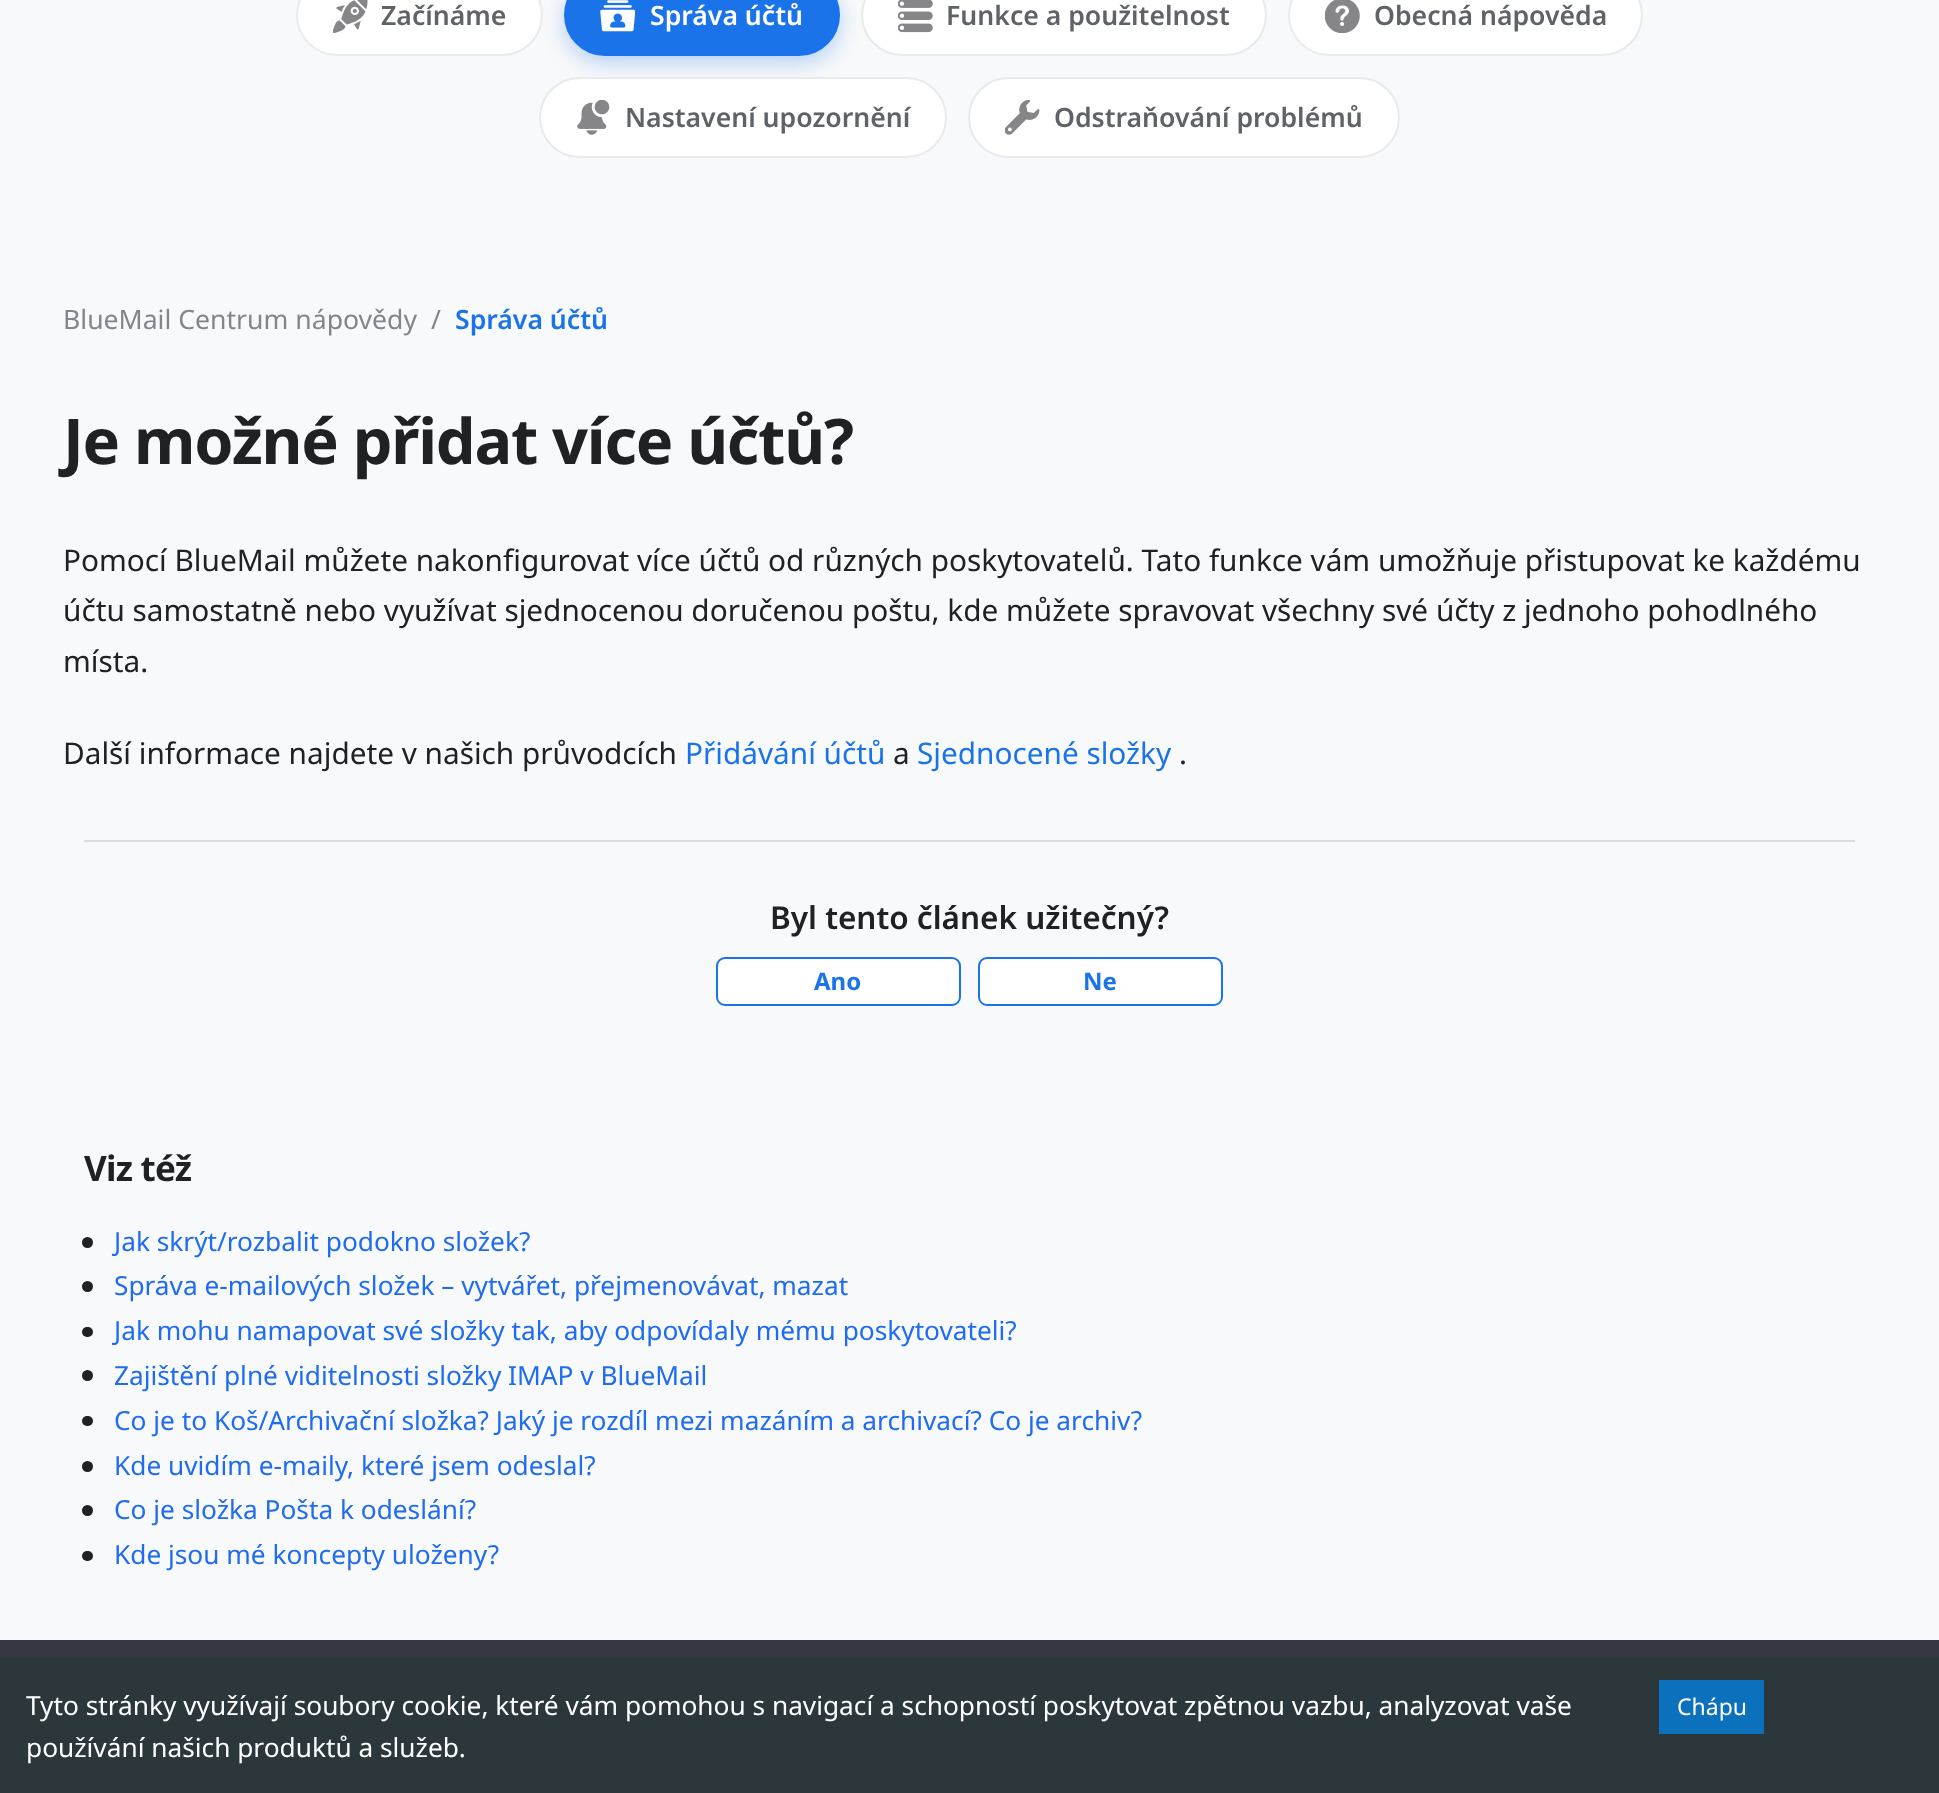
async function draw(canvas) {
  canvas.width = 1939;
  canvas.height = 1793;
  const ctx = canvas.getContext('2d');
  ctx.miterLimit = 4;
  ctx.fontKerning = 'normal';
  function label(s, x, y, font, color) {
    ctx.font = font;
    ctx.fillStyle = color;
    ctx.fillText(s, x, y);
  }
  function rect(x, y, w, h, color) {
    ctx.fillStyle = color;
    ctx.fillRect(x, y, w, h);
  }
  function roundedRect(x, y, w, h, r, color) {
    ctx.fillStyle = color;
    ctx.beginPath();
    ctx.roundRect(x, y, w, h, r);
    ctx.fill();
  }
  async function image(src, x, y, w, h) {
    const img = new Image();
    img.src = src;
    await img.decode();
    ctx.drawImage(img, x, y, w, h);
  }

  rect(0, 0, 1939, 1793, '#f8f9fa');
  ctx.fillStyle = '#fff';
  ctx.beginPath();
  ctx.roundRect(297, -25, 245, 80, 40);
  ctx.fill();
  ctx.strokeStyle = '#e8eaed';
  ctx.lineWidth = 2;
  ctx.stroke();
  await image('assets/img1.png', 333, 0, 35, 33);
  label('Začínáme', 381, 25, '600 26.6px Noto Sans', '#5f6368');
  ctx.fillStyle = '#1a73e84d';
  ctx.filter = 'blur(10.5px)';
  ctx.beginPath();
  ctx.roundRect(564, -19, 276, 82, 41);
  ctx.fill();
  ctx.filter = 'none';
  ctx.fillStyle = '#1a73e8';
  ctx.beginPath();
  ctx.roundRect(565, -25, 274, 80, 40);
  ctx.fill();
  ctx.strokeStyle = '#1a73e8';
  ctx.stroke();
  await image('assets/img2.png', 600, 0, 35, 32);
  label('Správa účtů', 650, 25, '600 26.6px Noto Sans', '#fff');
  ctx.beginPath();
  ctx.roundRect(862, -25, 404, 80, 40);
  ctx.fill();
  ctx.strokeStyle = '#e8eaed';
  ctx.stroke();
  await image('assets/img3.png', 898, 0, 35, 33);
  label('Funkce a použitelnost', 946, 25, '600 26.6px Noto Sans', '#5f6368');
  ctx.fillStyle = '#fff';
  ctx.beginPath();
  ctx.roundRect(1289, -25, 353, 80, 40);
  ctx.fill();
  ctx.stroke();
  await image('assets/img4.png', 1325, 0, 35, 33);
  label('Obecná nápověda', 1374, 25, '600 26.6px Noto Sans', '#5f6368');
  ctx.fillStyle = '#fff';
  ctx.beginPath();
  ctx.roundRect(540, 78, 406, 79, 39.5);
  ctx.fill();
  ctx.stroke();
  await image('assets/img5.png', 577, 100, 33, 35);
  label('Nastavení upozornění', 625, 127, '600 26.6px Noto Sans', '#5f6368');
  ctx.fillStyle = '#fff';
  ctx.beginPath();
  ctx.roundRect(969, 78, 430, 79, 39.5);
  ctx.fill();
  ctx.stroke();
  await image('assets/img6.png', 1005, 100, 35, 35);
  label('Odstraňování problémů', 1054, 127, '600 26.6px Noto Sans', '#5f6368');
  label('BlueMail Centrum nápovědy', 63, 329, '26.6px Noto Sans', '#80868b');
  label('/', 431, 329, '26.6px Noto Sans', '#80868b');
  label('Správa účtů', 455, 329, '600 26.6px Noto Sans', '#1a73e8');
  ctx.letterSpacing = '-1.25px';
  label('Je možné přidat více účtů?', 63, 464, 'bold 63px Noto Sans', '#202124');
  ctx.letterSpacing = '0px';
  label('Pomocí BlueMail můžete nakonfigurovat více účtů od různých poskytovatelů. Tato funkce vám umožňuje přistupovat ke každému', 63, 571, '29.75px Noto Sans', '#202124');
  label('účtu samostatně nebo využívat sjednocenou doručenou poštu, kde můžete spravovat všechny své účty z jednoho pohodlného', 63, 621, '29.75px Noto Sans', '#202124');
  label('místa.', 63, 672, '29.75px Noto Sans', '#202124');
  label('Další informace najdete v našich průvodcích', 63, 764, '29.75px Noto Sans', '#202124');
  label('Přidávání účtů', 685, 764, '29.75px Noto Sans', '#1a73e8');
  label('a', 893, 764, '29.75px Noto Sans', '#202124');
  label('Sjednocené složky', 917, 764, '29.75px Noto Sans', '#1a73e8');
  label('.', 1179, 764, '29.75px Noto Sans', '#202124');
  rect(84, 840, 1771, 2, '#dadce0');
  label('Byl tento článek užitečný?', 770, 929, '600 31.5px Noto Sans', '#202124');
  ctx.fillStyle = '#fff';
  ctx.beginPath();
  ctx.roundRect(717, 958, 243, 47, 8);
  ctx.fill();
  ctx.strokeStyle = '#1a73e8';
  ctx.stroke();
  label('Ano', 814, 990, 'bold 24px Noto Sans', '#1a73e8');
  ctx.fillStyle = '#fff';
  ctx.beginPath();
  ctx.roundRect(979, 958, 243, 47, 8);
  ctx.fill();
  ctx.stroke();
  label('Ne', 1083, 990, 'bold 24px Noto Sans', '#1a73e8');
  ctx.letterSpacing = '-0.75px';
  label('Viz též', 84, 1181, 'bold 35px Noto Sans', '#202124');
  ctx.beginPath();
  ctx.arc(87.5, 1242.5, 5.5, 0, 2 * Math.PI);
  ctx.fill();
  ctx.letterSpacing = '0px';
  label('Jak skrýt/rozbalit podokno složek?', 114, 1251, '26.25px Noto Sans', '#1f6bf1');
  ctx.fillStyle = '#202124';
  ctx.beginPath();
  ctx.arc(87.5, 1286.5, 5.5, 0, 2 * Math.PI);
  ctx.fill();
  label('Správa e-mailových složek – vytvářet, přejmenovávat, mazat', 114, 1295, '26.25px Noto Sans', '#1f6bf1');
  roundedRect(82, 1327, 11, 10, 5, '#202124');
  label('Jak mohu namapovat své složky tak, aby odpovídaly mému poskytovateli?', 114, 1340, '26.25px Noto Sans', '#1f6bf1');
  ctx.fillStyle = '#202124';
  ctx.beginPath();
  ctx.arc(87.5, 1375.5, 5.5, 0, 2 * Math.PI);
  ctx.fill();
  label('Zajištění plné viditelnosti složky IMAP v BlueMail', 114, 1385, '26.25px Noto Sans', '#1f6bf1');
  roundedRect(82, 1416, 11, 10, 5, '#202124');
  label('Co je to Koš/Archivační složka? Jaký je rozdíl mezi mazáním a archivací? Co je archiv?', 114, 1430, '26.25px Noto Sans', '#1f6bf1');
  ctx.fillStyle = '#202124';
  ctx.beginPath();
  ctx.arc(87.5, 1466.5, 5.5, 0, 2 * Math.PI);
  ctx.fill();
  label('Kde uvidím e-maily, které jsem odeslal?', 114, 1475, '26.25px Noto Sans', '#1f6bf1');
  ctx.fillStyle = '#202124';
  ctx.beginPath();
  ctx.arc(87.5, 1510.5, 5.5, 0, 2 * Math.PI);
  ctx.fill();
  label('Co je složka Pošta k odeslání?', 114, 1519, '26.25px Noto Sans', '#1f6bf1');
  roundedRect(82, 1551, 11, 10, 5, '#202124');
  label('Kde jsou mé koncepty uloženy?', 114, 1564, '26.25px Noto Sans', '#1f6bf1');
  rect(0, 1640, 1939, 17, '#343642');
  rect(0, 1657, 1939, 136, '#2b373b');
  label('Tyto stránky využívají soubory cookie, které vám pomohou s navigací a schopností poskytovat zpětnou vazbu, analyzovat vaše', 26, 1715, '26.25px Noto Sans', '#fff');
  label('používání našich produktů a služeb.', 26, 1757, '26.25px Noto Sans', '#fff');
  rect(1659, 1680, 105, 54, '#0b71bc');
  label('Chápu', 1677, 1715, '23px Noto Sans', '#fff');
}

draw(document.querySelector('canvas'));
